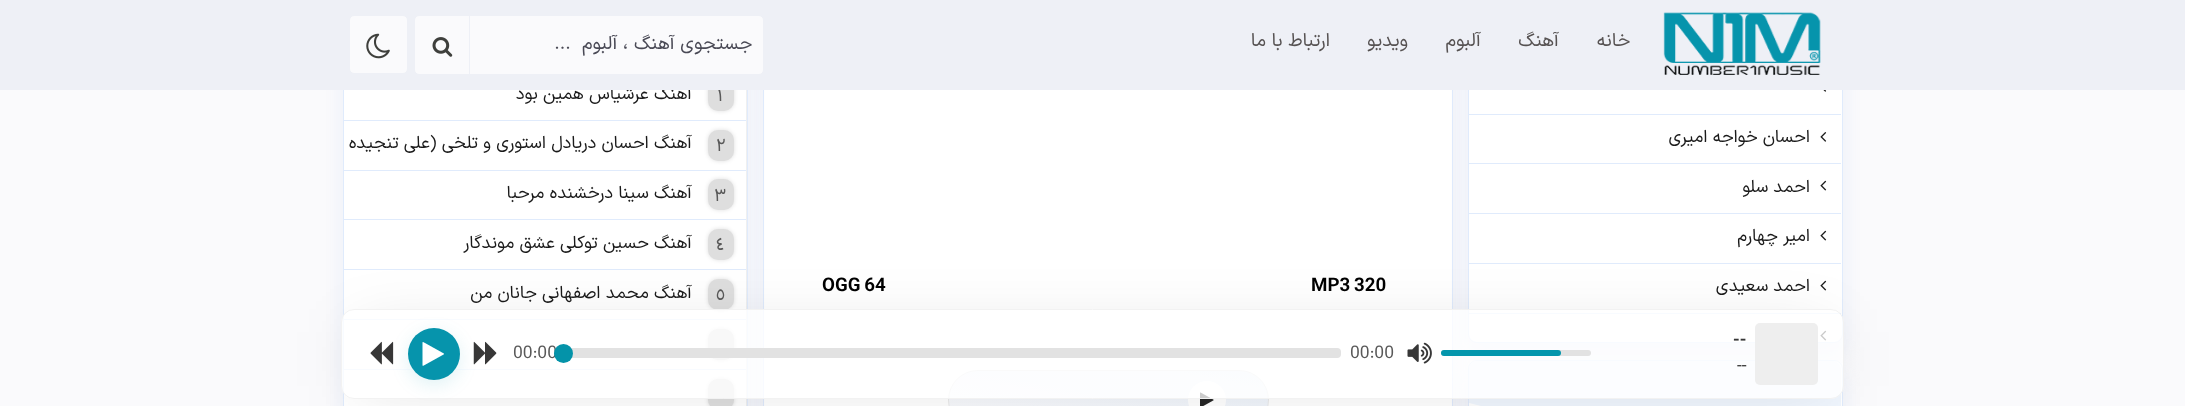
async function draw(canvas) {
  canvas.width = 2185;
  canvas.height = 406;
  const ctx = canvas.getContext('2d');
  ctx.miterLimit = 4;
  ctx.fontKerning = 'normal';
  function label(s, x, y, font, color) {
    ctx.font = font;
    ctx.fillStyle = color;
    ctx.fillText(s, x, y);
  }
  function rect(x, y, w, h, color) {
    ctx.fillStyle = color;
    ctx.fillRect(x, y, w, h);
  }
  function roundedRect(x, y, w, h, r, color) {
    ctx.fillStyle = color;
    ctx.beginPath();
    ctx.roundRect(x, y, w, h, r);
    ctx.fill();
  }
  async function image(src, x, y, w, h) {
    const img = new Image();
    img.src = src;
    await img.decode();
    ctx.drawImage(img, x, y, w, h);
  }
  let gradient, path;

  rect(0, 0, 2185, 406, '#fafafc');
  ctx.fillStyle = '#dce3f780';
  ctx.filter = 'blur(9.5px)';
  ctx.beginPath();
  ctx.roundRect(763, -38, 690, 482, 9);
  ctx.fill();
  ctx.filter = 'none';
  rect(764, 90, 688, 316, '#fff');
  ctx.strokeStyle = '#e0ebfc';
  ctx.strokeRect(763.5, -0.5, 689, 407);
  ctx.fillStyle = '#dce3f780';
  ctx.filter = 'blur(9.5px)';
  ctx.beginPath();
  ctx.roundRect(1468, -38, 375, 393, 9);
  ctx.fill();
  ctx.filter = 'none';
  ctx.fillStyle = '#fff';
  ctx.beginPath();
  ctx.roundRect(1468.5, -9.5, 374, 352, 8.5);
  ctx.fill();
  ctx.stroke();
  ctx.fillStyle = '#dce3f780';
  ctx.filter = 'blur(9.5px)';
  ctx.beginPath();
  ctx.roundRect(343, -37, 405, 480, 8);
  ctx.fill();
  ctx.filter = 'none';
  rect(746, 90, 1, 316, '#f0f0f0');
  ctx.strokeRect(343.5, -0.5, 404, 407);
  rect(344, 90, 402, 316, '#fff');
  ctx.fillStyle = '#00000021';
  ctx.filter = 'blur(2px)';
  ctx.beginPath();
  ctx.roundRect(708, 80, 26, 31, 10);
  ctx.fill();
  ctx.filter = 'none';
  roundedRect(708, 80, 26, 31, 10, '#dedede');
  label('١', 717, 101, '17.5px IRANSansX', '#595959');
  ctx.direction = 'rtl';
  label('آهنگ عرشیاس همین بود', 692, 99, '17.5px IRANSansX', '#1a1a1a');
  rect(0, 0, 2185, 90, '#eef0f6');
  await image('assets/img1.png', 1663, 12, 158, 63);
  label('خانه', 1630, 46, '18.75px IRANSansX', '#565252');
  label('آهنگ', 1559, 46, '18.75px IRANSansX', '#565252');
  label('آلبوم', 1481, 46, '18.75px IRANSansX', '#565252');
  label('ویدیو', 1408, 46, '18.75px IRANSansX', '#565252');
  label('ارتباط با ما', 1330, 46, '18.75px IRANSansX', '#565252');
  ctx.fillStyle = '#fafafc';
  ctx.beginPath();
  ctx.roundRect(414.5, 15.5, 349, 59, 4.5);
  ctx.fill();
  ctx.strokeStyle = '#eef0f6';
  ctx.stroke();
  label('جستجوی آهنگ ، آلبوم  ...', 752, 49, '18.75px IRANSansX', '#494955');
  rect(469, 16, 1, 58, '#eef0f6');
  await image('assets/img2.png', 432, 37, 21, 20);
  ctx.fillStyle = '#fafafc';
  ctx.beginPath();
  ctx.roundRect(349.5, 15.5, 58, 58, 4.5);
  ctx.fill();
  ctx.stroke();
  await image('assets/img3.png', 366, 33, 24, 26);
  rect(1469, 114, 372, 1, '#e0ebfc');
  await image('assets/img4.png', 1823, 90, 4, 2);
  rect(1469, 163, 372, 1, '#e0ebfc');
  await image('assets/img5.png', 1820, 132, 7, 10);
  label('احسان خواجه امیری', 1810, 142, '17.5px IRANSansX', '#1a1a1a');
  rect(1469, 213, 372, 1, '#e0ebfc');
  await image('assets/img6.png', 1820, 180, 7, 11);
  label('احمد سلو', 1810, 192, '17.5px IRANSansX', '#1a1a1a');
  rect(1469, 263, 372, 1, '#e0ebfc');
  await image('assets/img6.png', 1820, 230, 7, 11);
  label('امیر چهارم', 1810, 241, '17.5px IRANSansX', '#1a1a1a');
  rect(1469, 313, 372, 1, '#e0ebfc');
  await image('assets/img6.png', 1820, 280, 7, 11);
  label('احمد سعیدی', 1810, 291, '17.5px IRANSansX', '#1a1a1a');
  await image('assets/img6.png', 1820, 330, 7, 11);
  ctx.fillStyle = '#dce3f780';
  ctx.filter = 'blur(9.5px)';
  ctx.beginPath();
  ctx.roundRect(1468, 373, 375, 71, 9);
  ctx.fill();
  ctx.filter = 'none';
  ctx.fillStyle = '#fff';
  ctx.beginPath();
  ctx.roundRect(1468.5, 360.5, 374, 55, 8.5);
  ctx.fill();
  ctx.strokeStyle = '#e0ebfc';
  ctx.stroke();
  ctx.fillStyle = '#f0f6fe';
  path = new Path2D('M1477 361H1833C1837 361 1841 365 1841 369V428C1764 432 1686 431 1609 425C1562 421 1515 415 1469 403V369C1469 365 1473 361 1477 361Z');
  ctx.fill(path);
  ctx.direction = 'ltr';
  label('MP3 320', 1311, 291, 'bold 18.75px IRANSansX', '#000');
  label('OGG 64', 822, 291, 'bold 18.75px IRANSansX', '#000');
  ctx.save();
  ctx.beginPath();
  ctx.roundRect(948, 370, 321, 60, 30);
  ctx.clip();
  gradient = ctx.createLinearGradient(1098, 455, 1118, 345);
  gradient.addColorStop(0, '#fafafc');
  gradient.addColorStop(1, '#edf3fb');
  ctx.fillStyle = gradient;
  ctx.fillRect(949, 371, 319, 35);
  ctx.restore();
  ctx.beginPath();
  ctx.roundRect(948.5, 370.5, 320, 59, 29.5);
  ctx.strokeStyle = '#eaeaea';
  ctx.stroke();
  ctx.fillStyle = '#fff';
  ctx.beginPath();
  ctx.arc(1207, 400, 19, 0, 2 * Math.PI);
  ctx.fill();
  await image('assets/img7.png', 1200, 392, 14, 14);
  rect(344, 120, 402, 1, '#e0ebfc');
  rect(344, 170, 402, 1, '#e0ebfc');
  ctx.fillStyle = '#00000021';
  ctx.filter = 'blur(2px)';
  ctx.beginPath();
  ctx.roundRect(708, 130, 26, 31, 10);
  ctx.fill();
  ctx.filter = 'none';
  roundedRect(708, 130, 26, 31, 10, '#dedede');
  label('٢', 716, 151, '17.5px IRANSansX', '#595959');
  ctx.direction = 'rtl';
  label('آهنگ احسان دریادل استوری و تلخی (علی تنجیده', 692, 148, '17.5px IRANSansX', '#1a1a1a');
  rect(344, 219, 402, 1, '#e0ebfc');
  ctx.fillStyle = '#00000021';
  ctx.filter = 'blur(2px)';
  ctx.beginPath();
  ctx.roundRect(708, 179, 26, 31, 10);
  ctx.fill();
  ctx.filter = 'none';
  roundedRect(708, 179, 26, 31, 10, '#dedede');
  ctx.direction = 'ltr';
  label('٣', 714, 201, '17.5px IRANSansX', '#595959');
  ctx.direction = 'rtl';
  label('آهنگ سینا درخشنده مرحبا', 692, 198, '17.5px IRANSansX', '#1a1a1a');
  rect(344, 269, 402, 1, '#e0ebfc');
  ctx.fillStyle = '#00000021';
  ctx.filter = 'blur(2px)';
  ctx.beginPath();
  ctx.roundRect(708, 229, 26, 31, 10);
  ctx.fill();
  ctx.filter = 'none';
  roundedRect(708, 229, 26, 31, 10, '#dedede');
  ctx.direction = 'ltr';
  label('٤', 716, 250, '17.5px IRANSansX', '#595959');
  ctx.direction = 'rtl';
  label('آهنگ حسین توکلی عشق موندگار', 692, 248, '17.5px IRANSansX', '#1a1a1a');
  rect(344, 319, 402, 1, '#e0ebfc');
  ctx.fillStyle = '#00000021';
  ctx.filter = 'blur(2px)';
  ctx.beginPath();
  ctx.roundRect(708, 279, 26, 31, 10);
  ctx.fill();
  ctx.filter = 'none';
  roundedRect(708, 279, 26, 31, 10, '#dedede');
  ctx.direction = 'ltr';
  label('٥', 716, 300, '17.5px IRANSansX', '#595959');
  ctx.direction = 'rtl';
  label('آهنگ محمد اصفهانی جانان من', 692, 298, '17.5px IRANSansX', '#1a1a1a');
  rect(344, 369, 402, 1, '#e0ebfc');
  ctx.fillStyle = '#00000021';
  ctx.filter = 'blur(2px)';
  ctx.beginPath();
  ctx.roundRect(708, 329, 26, 31, 10);
  ctx.fill();
  ctx.filter = 'none';
  roundedRect(708, 329, 26, 31, 10, '#dedede');
  ctx.fillStyle = '#00000021';
  ctx.filter = 'blur(2px)';
  ctx.beginPath();
  ctx.roundRect(708, 379, 26, 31, 10);
  ctx.fill();
  ctx.filter = 'none';
  roundedRect(708, 379, 26, 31, 10, '#dedede');
  ctx.save();
  path = new Path2D('M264 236H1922V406H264ZM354 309H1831C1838 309 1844 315 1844 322V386C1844 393 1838 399 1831 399H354C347 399 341 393 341 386V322C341 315 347 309 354 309Z');
  ctx.clip(path, 'evenodd');
  ctx.fillStyle = '#0000001f';
  ctx.filter = 'blur(31px)';
  ctx.beginPath();
  ctx.rect(358, 330, 1470, 58);
  ctx.fill();
  ctx.filter = 'none';
  ctx.restore();
  ctx.fillStyle = '#ffffffc4';
  ctx.beginPath();
  ctx.roundRect(341.5, 309.5, 1502, 89, 12.5);
  ctx.fill();
  ctx.strokeStyle = '#f2f2f2';
  ctx.stroke();
  roundedRect(1755, 323, 63, 62, 5, '#eee');
  ctx.direction = 'ltr';
  label('--', 1733, 345, 'bold 17.5px IRANSansX', '#373737');
  label('--', 1737, 371, '17.5px IRANSansX', '#373737');
  await image('assets/img10.png', 473, 341, 24, 24);
  await image('assets/img11.png', 370, 341, 24, 24);
  ctx.fillStyle = '#0496ac1f';
  ctx.filter = 'blur(9px)';
  ctx.beginPath();
  ctx.roundRect(408, 333, 52, 52, 26);
  ctx.fill();
  ctx.filter = 'none';
  ctx.fillStyle = '#0694ac';
  ctx.beginPath();
  ctx.arc(434, 354, 26, 0, 2 * Math.PI);
  ctx.fill();
  await image('assets/img8.png', 422, 342, 22, 24);
  roundedRect(1441, 350, 150, 6, 3, '#e2e2e2');
  roundedRect(1441, 350, 120, 6, 3, '#0496ac');
  await image('assets/img9.png', 1407, 342, 25, 22);
  label('00:00', 1350, 358, '17.5px IRANSansX', '#595959');
  roundedRect(565, 348, 776, 10, 4, '#e2e2e2');
  label('00:00', 513, 358, '17.5px IRANSansX', '#595959');
  ctx.fillStyle = '#0493a9';
  ctx.beginPath();
  ctx.arc(563.5, 353.5, 9.5, 0, 2 * Math.PI);
  ctx.fill();
}

draw(document.querySelector('canvas'));
